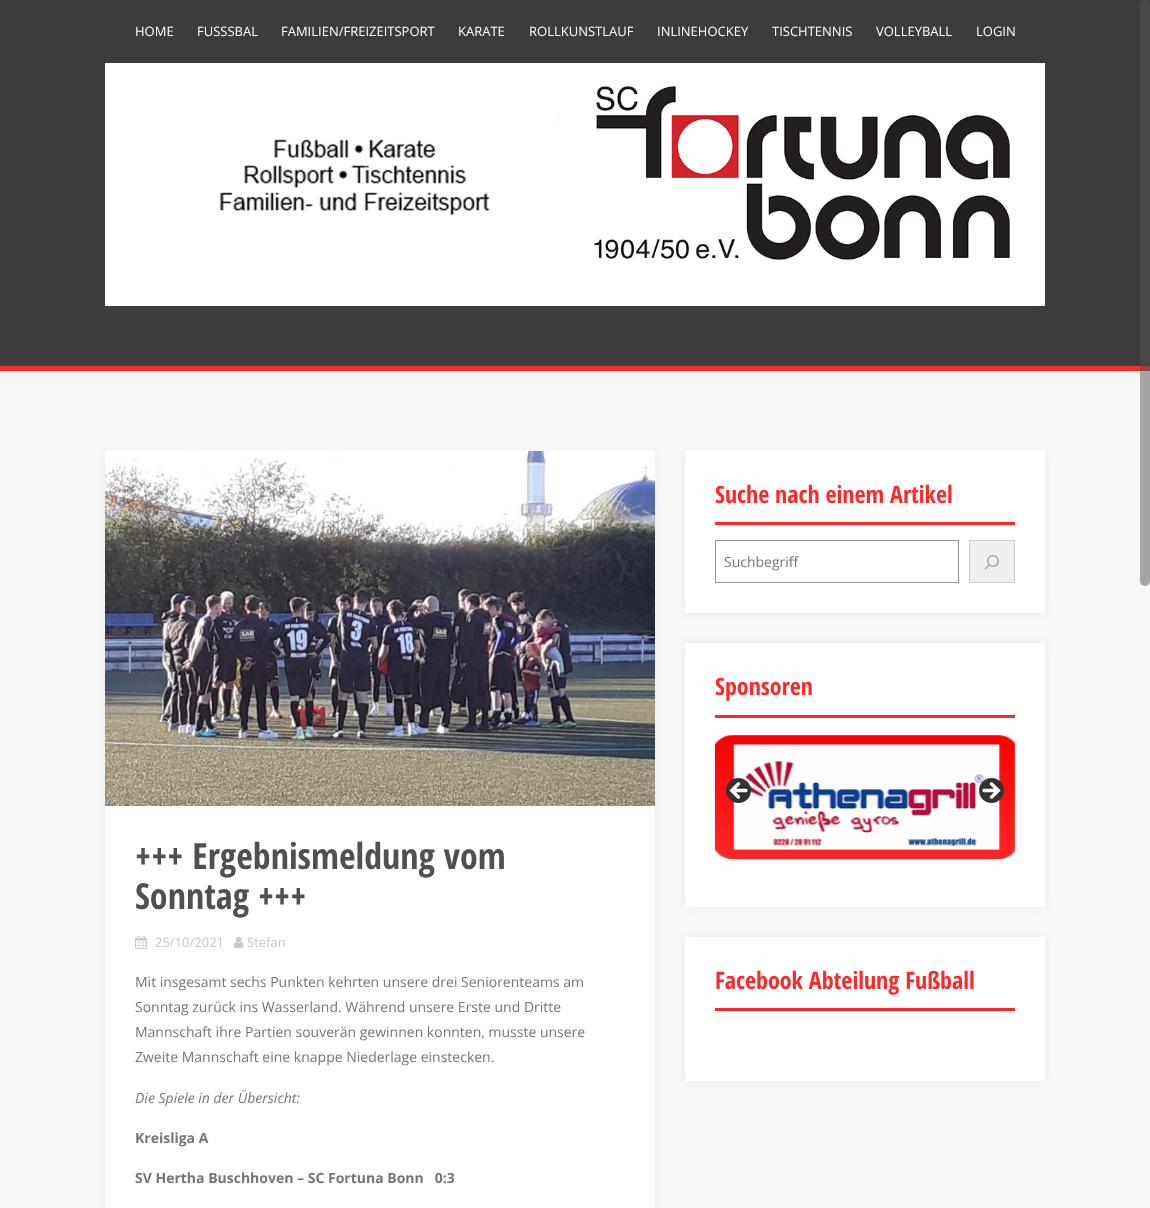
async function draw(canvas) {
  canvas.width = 1150;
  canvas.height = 1208;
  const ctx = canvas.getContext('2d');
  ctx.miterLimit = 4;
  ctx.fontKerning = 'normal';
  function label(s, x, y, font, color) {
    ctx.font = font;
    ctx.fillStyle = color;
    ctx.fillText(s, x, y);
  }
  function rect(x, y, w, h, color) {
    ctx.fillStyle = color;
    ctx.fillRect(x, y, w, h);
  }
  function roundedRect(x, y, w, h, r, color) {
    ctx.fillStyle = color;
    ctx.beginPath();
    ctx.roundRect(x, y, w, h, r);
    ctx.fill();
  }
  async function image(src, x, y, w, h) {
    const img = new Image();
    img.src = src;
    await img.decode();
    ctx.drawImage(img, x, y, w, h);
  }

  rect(0, 0, 1150, 1208, '#f7f7f7');
  rect(0, 0, 1150, 366, '#3c3c3c');
  rect(0, 366, 1150, 5, '#ff2828');
  label('HOME', 135, 36, '13px Open Sans', '#fff');
  label('FUSSSBAL', 197, 36, '13px Open Sans', '#fff');
  label('FAMILIEN/FREIZEITSPORT', 281, 36, '13px Open Sans', '#fff');
  label('KARATE', 458, 36, '13px Open Sans', '#fff');
  label('ROLLKUNSTLAUF', 529, 36, '13px Open Sans', '#fff');
  label('INLINEHOCKEY', 657, 36, '13px Open Sans', '#fff');
  label('TISCHTENNIS', 772, 36, '13px Open Sans', '#fff');
  label('VOLLEYBALL', 876, 36, '13px Open Sans', '#fff');
  label('LOGIN', 976, 36, '13px Open Sans', '#fff');
  await image('assets/img1.png', 105, 63, 940, 243);
  ctx.save();
  ctx.beginPath();
  ctx.rect(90, 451, 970, 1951);
  ctx.clip();
  ctx.fillStyle = '#828e941a';
  ctx.filter = 'blur(5px)';
  ctx.beginPath();
  ctx.rect(105, 451, 550, 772);
  ctx.fill();
  ctx.filter = 'none';
  ctx.restore();
  rect(105, 806, 550, 402, '#fff');
  await image('assets/img2.png', 105, 451, 550, 355);
  label('+++ Ergebnismeldung vom', 135, 869, 'bold 36px Open Sans Condensed', '#505050');
  label('Sonntag +++', 135, 909, 'bold 36px Open Sans Condensed', '#505050');
  await image('assets/img3.png', 135, 935, 12, 14);
  label('25/10/2021', 155, 947, '13px Open Sans', '#c8c8c8');
  await image('assets/img4.png', 234, 936, 10, 12);
  label('Stefan', 247, 947, '13px Open Sans', '#c8c8c8');
  label('Mit insgesamt sechs Punkten kehrten unsere drei Seniorenteams am', 135, 987, '14px Open Sans', '#757575');
  label('Sonntag zurück ins Wasserland. Während unsere Erste und Dritte', 135, 1012, '14px Open Sans', '#757575');
  label('Mannschaft ihre Partien souverän gewinnen konnten, musste unsere', 135, 1037, '14px Open Sans', '#757575');
  label('Zweite Mannschaft eine knappe Niederlage einstecken.', 135, 1062, '14px Open Sans', '#757575');
  label('Die Spiele in der Übersicht:', 135, 1103, 'italic 14px Open Sans', '#757575');
  label('Kreisliga A', 135, 1143, 'bold 14px Open Sans', '#757575');
  label('SV Hertha Buschhoven – SC Fortuna Bonn   0:3', 135, 1183, 'bold 14px Open Sans', '#757575');
  ctx.save();
  ctx.beginPath();
  ctx.rect(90, 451, 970, 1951);
  ctx.clip();
  ctx.fillStyle = '#828e941a';
  ctx.filter = 'blur(5px)';
  ctx.beginPath();
  ctx.rect(685, 451, 360, 162);
  ctx.fill();
  ctx.filter = 'none';
  ctx.restore();
  rect(685, 451, 360, 162, '#fff');
  rect(715, 522, 300, 3, '#ff2828');
  label('Suche nach einem Artikel', 715, 503, 'bold 24px Open Sans Condensed', '#ff2828');
  ctx.strokeStyle = '#949494';
  ctx.strokeRect(715.5, 540.5, 243, 42);
  label('Suchbegriff', 724, 567, '14px Open Sans', '#757575');
  ctx.fillStyle = '#efefef';
  ctx.beginPath();
  ctx.rect(969.5, 540.5, 45, 42);
  ctx.fill();
  ctx.strokeStyle = '#ccc';
  ctx.stroke();
  await image('assets/img5.png', 984, 555, 16, 15);
  ctx.fillStyle = '#828e941a';
  ctx.filter = 'blur(5px)';
  ctx.beginPath();
  ctx.rect(685, 643, 360, 264);
  ctx.fill();
  ctx.filter = 'none';
  rect(685, 643, 360, 264, '#fff');
  rect(715, 715, 300, 3, '#ff2828');
  label('Sponsoren', 715, 695, 'bold 24px Open Sans Condensed', '#ff2828');
  await image('assets/img6.png', 715, 735, 300, 124);
  await image('assets/img7.png', 726, 778, 25, 25);
  await image('assets/img8.png', 979, 778, 25, 25);
  ctx.fillStyle = '#828e941a';
  ctx.filter = 'blur(5px)';
  ctx.beginPath();
  ctx.rect(685, 937, 360, 144);
  ctx.fill();
  ctx.filter = 'none';
  rect(685, 937, 360, 144, '#fff');
  rect(715, 1008, 300, 3, '#ff2828');
  label('Facebook Abteilung Fußball', 715, 989, 'bold 24px Open Sans Condensed', '#ff2828');
  roundedRect(1140, 0, 10, 586, 5, '#52525280');
}

draw(document.querySelector('canvas'));
